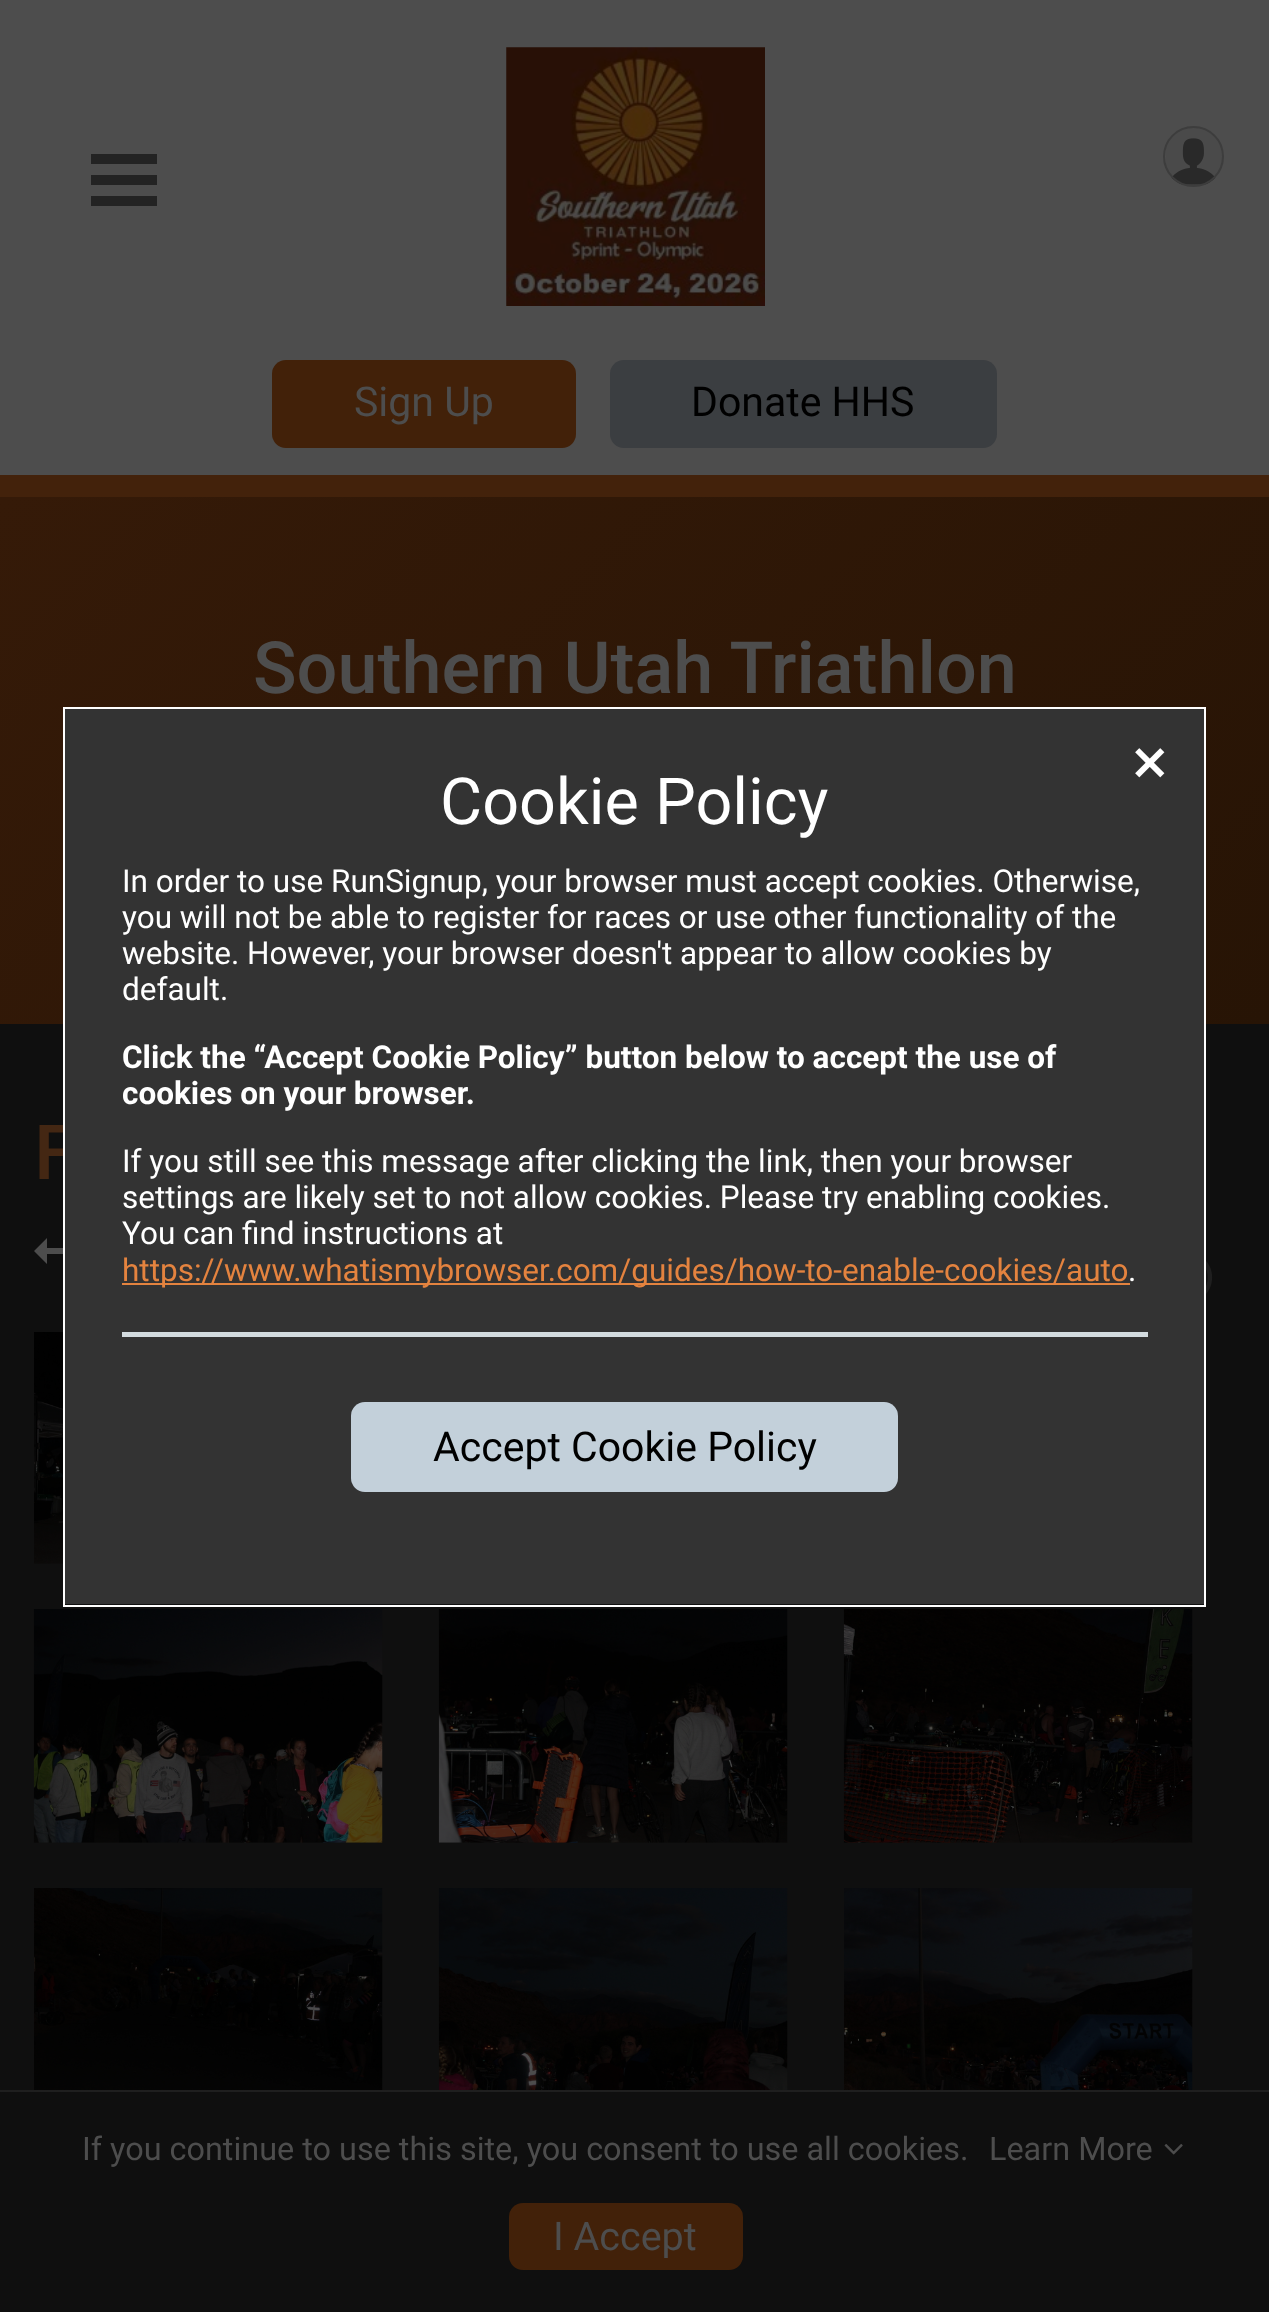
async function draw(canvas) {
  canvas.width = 1269;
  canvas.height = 2312;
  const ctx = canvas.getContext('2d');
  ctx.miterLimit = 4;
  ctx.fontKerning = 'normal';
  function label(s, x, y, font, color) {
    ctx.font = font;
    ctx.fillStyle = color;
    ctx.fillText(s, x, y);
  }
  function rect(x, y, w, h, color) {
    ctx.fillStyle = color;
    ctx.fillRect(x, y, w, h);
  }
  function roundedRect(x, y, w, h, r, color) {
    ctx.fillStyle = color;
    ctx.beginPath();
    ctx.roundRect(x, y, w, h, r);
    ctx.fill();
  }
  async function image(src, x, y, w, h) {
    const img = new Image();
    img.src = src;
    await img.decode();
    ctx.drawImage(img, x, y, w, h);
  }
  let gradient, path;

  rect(0, 0, 1269, 2312, '#0f0f0f');
  rect(0, 0, 1269, 475, '#4d4d4d');
  ctx.fillStyle = '#232323';
  path = new Path2D('M157 154V164H91V154ZM157 175V185H91V175ZM157 196V206H91V196Z');
  ctx.fill(path);
  await image('assets/img1.png', 506, 47, 259, 259);
  await image('assets/img2.png', 1166, 128, 56, 57);
  ctx.beginPath();
  ctx.arc(1193.5, 156.5, 29.5, 0, 2 * Math.PI);
  ctx.strokeStyle = '#3d3d3d';
  ctx.lineWidth = 2;
  ctx.stroke();
  roundedRect(272, 360, 304, 88, 14, '#422109');
  label('Sign Up', 354, 416, '41px Roboto', '#4d4d4d');
  roundedRect(610, 360, 387, 88, 14, '#3b3e41');
  label('Donate HHS', 691, 416, '41px Roboto', '#000');
  gradient = ctx.createLinearGradient(1083, 1209, 186, 312);
  gradient.addColorStop(0, '#271405');
  gradient.addColorStop(1, '#351a08');
  ctx.fillStyle = gradient;
  ctx.fillRect(0, 497, 1269, 527);
  rect(0, 475, 1269, 22, '#43220b');
  label('Southern Utah Triathlon', 253, 693, '500 72px Roboto', '#4d4d4d');
  label('F', 34, 1179, '500 76px Roboto', '#442713');
  ctx.fillStyle = '#4d4d4d';
  path = new Path2D('M47 1238L34 1251L47 1264V1254H69V1248H47Z');
  ctx.fill(path);
  ctx.fillStyle = '#1f1f1f';
  path = new Path2D('M1189 1254C1158 1254 1158 1301 1189 1301C1220 1301 1220 1254 1189 1254ZM1189 1297C1164 1297 1164 1258 1189 1258C1214 1258 1214 1297 1189 1297ZM1182 1287L1186 1291L1199 1278L1186 1264L1182 1269L1191 1278Z');
  ctx.fill(path);
  await image('assets/img3.png', 34, 1332, 29, 232);
  await image('assets/img4.png', 33, 1609, 350, 234);
  await image('assets/img5.png', 438, 1609, 350, 234);
  await image('assets/img6.png', 843, 1609, 350, 234);
  await image('assets/img7.png', 34, 1888, 349, 202);
  await image('assets/img8.png', 438, 1888, 350, 202);
  await image('assets/img9.png', 844, 1888, 349, 202);
  ctx.strokeStyle = '#fff';
  ctx.strokeRect(64, 708, 1141, 898);
  rect(65, 709, 1139, 895, '#333');
  await image('assets/img10.png', 1135, 748, 30, 30);
  label('Cookie Policy', 440, 824, '64.75px Roboto', '#fff');
  label('In order to use RunSignup, your browser must accept cookies. Otherwise,', 122, 892, '31.5px Roboto', '#fff');
  label('you will not be able to register for races or use other functionality of the', 122, 928, '31.5px Roboto', '#fff');
  label('website. However, your browser doesn\'t appear to allow cookies by', 122, 964, '31.5px Roboto', '#fff');
  label('default.', 122, 1000, '31.5px Roboto', '#fff');
  label('Click the “Accept Cookie Policy” button below to accept the use of', 122, 1068, 'bold 31.5px Roboto', '#fff');
  label('cookies on your browser.', 122, 1104, 'bold 31.5px Roboto', '#fff');
  label('If you still see this message after clicking the link, then your browser', 122, 1172, '31.5px Roboto', '#fff');
  label('settings are likely set to not allow cookies. Please try enabling cookies.', 122, 1208, '31.5px Roboto', '#fff');
  label('You can find instructions at', 122, 1244, '31.5px Roboto', '#fff');
  rect(122, 1283, 1008, 2, '#e4833f');
  label('https://www.whatismybrowser.com/guides/how-to-enable-cookies/auto', 122, 1281, '31.5px Roboto', '#e4833f');
  label('.', 1128, 1281, '31.5px Roboto', '#fff');
  rect(122, 1332, 1026, 5, '#d3dbdf');
  roundedRect(351, 1402, 547, 90, 14, '#c3d0da');
  label('Accept Cookie Policy', 433, 1461, '41px Roboto', '#000');
  rect(0, 2090, 1269, 2, '#1f1f1f');
  label('If you continue to use this site, you consent to use all cookies.', 82, 2160, '32.4px Roboto', '#4d4d4d');
  label('Learn More', 989, 2160, '32.4px Roboto', '#4d4d4d');
  await image('assets/img11.png', 1164, 2144, 19, 11);
  roundedRect(509, 2203, 234, 67, 14, '#422109');
  label('I Accept', 553, 2250, '39.5px Roboto', '#4d4d4d');
}

draw(document.querySelector('canvas'));
